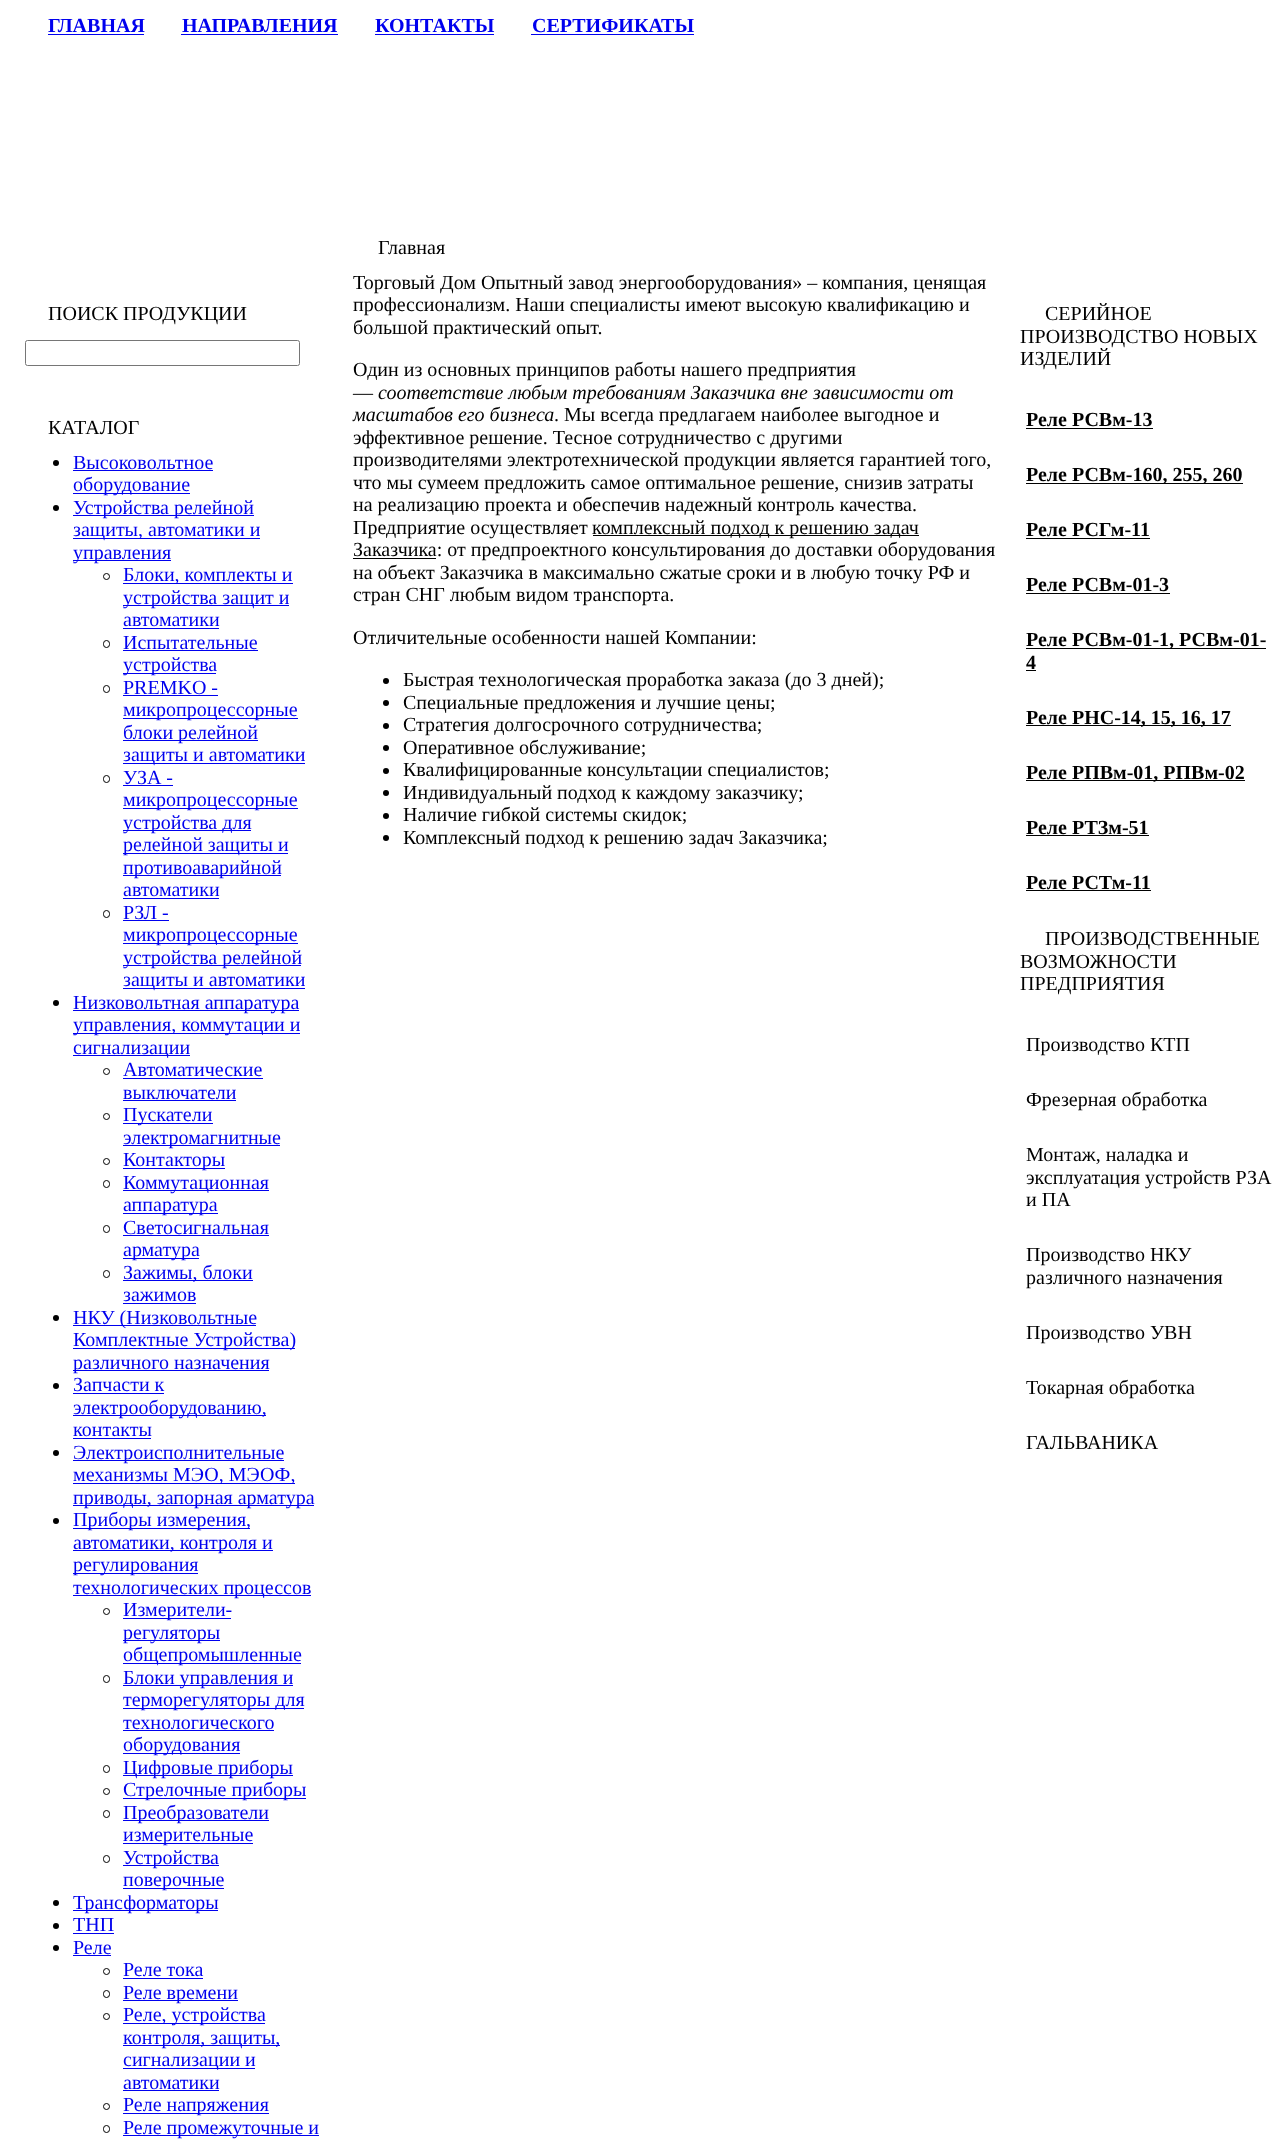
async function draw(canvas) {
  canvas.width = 1285;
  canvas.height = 2142;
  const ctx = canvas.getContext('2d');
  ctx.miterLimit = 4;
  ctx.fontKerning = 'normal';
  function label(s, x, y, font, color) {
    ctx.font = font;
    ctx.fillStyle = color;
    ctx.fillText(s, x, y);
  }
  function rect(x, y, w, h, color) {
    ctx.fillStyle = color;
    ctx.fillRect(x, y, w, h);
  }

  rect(0, 0, 1285, 2142, '#fff');
  label('ГЛАВНАЯ', 48, 32, 'bold 20px Liberation Serif', '#00e');
  rect(48, 34, 96, 1, '#00e');
  label('НАПРАВЛЕНИЯ', 182, 32, 'bold 20px Liberation Serif', '#00e');
  rect(181, 34, 157, 1, '#00e');
  label('КОНТАКТЫ', 375, 32, 'bold 20px Liberation Serif', '#00e');
  rect(375, 34, 119, 1, '#00e');
  label('СЕРТИФИКАТЫ', 532, 32, 'bold 20px Liberation Serif', '#00e');
  rect(531, 34, 163, 1, '#00e');
  label('ПОИСК ПРОДУКЦИИ', 48, 320, '20px Liberation Serif', '#000');
  ctx.beginPath();
  ctx.roundRect(25.5, 340.5, 274, 25, 2);
  ctx.strokeStyle = '#767676';
  ctx.stroke();
  label('КАТАЛОГ', 48, 434, '20px Liberation Serif', '#000');
  ctx.beginPath();
  ctx.arc(56, 463, 3, 0, 2 * Math.PI);
  ctx.fill();
  label('Высоковольтное', 73, 469, '20px Liberation Serif', '#00e');
  rect(73, 470, 140, 1, '#00e');
  rect(73, 493, 117, 1, '#00e');
  label('оборудование', 73, 491, '20px Liberation Serif', '#00e');
  ctx.fillStyle = '#000';
  ctx.beginPath();
  ctx.arc(56, 508, 3, 0, 2 * Math.PI);
  ctx.fill();
  rect(73, 515, 181, 1, '#00e');
  label('Устройства релейной', 73, 514, '20px Liberation Serif', '#00e');
  rect(73, 538, 187, 1, '#00e');
  label('защиты, автоматики и', 73, 536, '20px Liberation Serif', '#00e');
  rect(73, 560, 98, 1, '#00e');
  label('управления', 73, 559, '20px Liberation Serif', '#00e');
  ctx.beginPath();
  ctx.arc(106.5, 576.5, 3, 0, 2 * Math.PI);
  ctx.strokeStyle = '#000';
  ctx.stroke();
  rect(123, 583, 170, 1, '#00e');
  label('Блоки, комплекты и', 123, 581, '20px Liberation Serif', '#00e');
  rect(123, 605, 166, 1, '#00e');
  label('устройства защит и', 123, 604, '20px Liberation Serif', '#00e');
  label('автоматики', 123, 626, '20px Liberation Serif', '#00e');
  rect(123, 628, 96, 1, '#00e');
  ctx.beginPath();
  ctx.roundRect(103.5, 640.5, 6, 7, 3);
  ctx.stroke();
  label('Испытательные', 123, 649, '20px Liberation Serif', '#00e');
  rect(123, 650, 135, 1, '#00e');
  rect(123, 673, 93, 1, '#00e');
  label('устройства', 123, 671, '20px Liberation Serif', '#00e');
  ctx.beginPath();
  ctx.roundRect(103.5, 685.5, 6, 7, 3);
  ctx.stroke();
  label('PREMKO -', 123, 694, '20px Liberation Serif', '#00e');
  rect(123, 695, 95, 1, '#00e');
  rect(123, 718, 175, 1, '#00e');
  label('микропроцессорные', 123, 716, '20px Liberation Serif', '#00e');
  rect(123, 740, 135, 1, '#00e');
  label('блоки релейной', 123, 739, '20px Liberation Serif', '#00e');
  rect(123, 763, 182, 1, '#00e');
  label('защиты и автоматики', 123, 761, '20px Liberation Serif', '#00e');
  ctx.beginPath();
  ctx.roundRect(103.5, 775.5, 6, 7, 3);
  ctx.stroke();
  label('УЗА -', 123, 784, '20px Liberation Serif', '#00e');
  rect(123, 785, 50, 1, '#00e');
  rect(123, 808, 175, 1, '#00e');
  label('микропроцессорные', 123, 806, '20px Liberation Serif', '#00e');
  rect(123, 830, 128, 1, '#00e');
  label('устройства для', 123, 829, '20px Liberation Serif', '#00e');
  rect(123, 853, 165, 1, '#00e');
  label('релейной защиты и', 123, 851, '20px Liberation Serif', '#00e');
  rect(123, 875, 158, 1, '#00e');
  label('противоаварийной', 123, 874, '20px Liberation Serif', '#00e');
  label('автоматики', 123, 896, '20px Liberation Serif', '#00e');
  rect(123, 898, 96, 1, '#00e');
  ctx.beginPath();
  ctx.roundRect(103.5, 910.5, 6, 7, 3);
  ctx.stroke();
  label('РЗЛ -', 123, 919, '20px Liberation Serif', '#00e');
  rect(123, 920, 46, 1, '#00e');
  rect(123, 943, 175, 1, '#00e');
  label('микропроцессорные', 123, 941, '20px Liberation Serif', '#00e');
  rect(123, 965, 178, 1, '#00e');
  label('устройства релейной', 123, 964, '20px Liberation Serif', '#00e');
  rect(123, 988, 182, 1, '#00e');
  label('защиты и автоматики', 123, 986, '20px Liberation Serif', '#00e');
  ctx.fillStyle = '#000';
  ctx.beginPath();
  ctx.arc(56, 1003, 3, 0, 2 * Math.PI);
  ctx.fill();
  rect(73, 1010, 226, 1, '#00e');
  label('Низковольтная аппаратура', 73, 1009, '20px Liberation Serif', '#00e');
  rect(73, 1033, 227, 1, '#00e');
  label('управления, коммутации и', 73, 1031, '20px Liberation Serif', '#00e');
  rect(73, 1055, 117, 1, '#00e');
  label('сигнализации', 73, 1054, '20px Liberation Serif', '#00e');
  ctx.beginPath();
  ctx.arc(106.5, 1071.5, 3, 0, 2 * Math.PI);
  ctx.stroke();
  label('Автоматические', 123, 1076, '20px Liberation Serif', '#00e');
  rect(123, 1078, 140, 1, '#00e');
  label('выключатели', 123, 1099, '20px Liberation Serif', '#00e');
  rect(123, 1100, 113, 1, '#00e');
  ctx.beginPath();
  ctx.arc(106.5, 1116.5, 3, 0, 2 * Math.PI);
  ctx.stroke();
  rect(123, 1123, 90, 1, '#00e');
  label('Пускатели', 123, 1121, '20px Liberation Serif', '#00e');
  rect(123, 1145, 157, 1, '#00e');
  label('электромагнитные', 123, 1144, '20px Liberation Serif', '#00e');
  ctx.beginPath();
  ctx.arc(106.5, 1161.5, 3, 0, 2 * Math.PI);
  ctx.stroke();
  rect(123, 1168, 102, 1, '#00e');
  label('Контакторы', 123, 1166, '20px Liberation Serif', '#00e');
  ctx.beginPath();
  ctx.roundRect(103.5, 1180.5, 6, 7, 3);
  ctx.stroke();
  rect(123, 1190, 146, 1, '#00e');
  label('Коммутационная', 123, 1189, '20px Liberation Serif', '#00e');
  rect(123, 1213, 95, 1, '#00e');
  label('аппаратура', 123, 1211, '20px Liberation Serif', '#00e');
  ctx.beginPath();
  ctx.roundRect(103.5, 1225.5, 6, 7, 3);
  ctx.stroke();
  label('Светосигнальная', 123, 1234, '20px Liberation Serif', '#00e');
  rect(123, 1235, 146, 1, '#00e');
  rect(123, 1258, 76, 1, '#00e');
  label('арматура', 123, 1256, '20px Liberation Serif', '#00e');
  ctx.beginPath();
  ctx.roundRect(103.5, 1270.5, 6, 7, 3);
  ctx.stroke();
  rect(123, 1280, 130, 1, '#00e');
  label('Зажимы, блоки', 123, 1279, '20px Liberation Serif', '#00e');
  label('зажимов', 123, 1301, '20px Liberation Serif', '#00e');
  rect(123, 1303, 73, 1, '#00e');
  ctx.fillStyle = '#000';
  ctx.beginPath();
  ctx.arc(56, 1318, 3, 0, 2 * Math.PI);
  ctx.fill();
  rect(73, 1325, 183, 1, '#00e');
  label('НКУ (Низковольтные', 73, 1324, '20px Liberation Serif', '#00e');
  rect(73, 1348, 222, 1, '#00e');
  label('Комплектные Устройства)', 73, 1346, '20px Liberation Serif', '#00e');
  rect(73, 1370, 196, 1, '#00e');
  label('различного назначения', 73, 1369, '20px Liberation Serif', '#00e');
  ctx.fillStyle = '#000';
  ctx.beginPath();
  ctx.arc(56, 1386, 3, 0, 2 * Math.PI);
  ctx.fill();
  label('Запчасти к', 73, 1391, '20px Liberation Serif', '#00e');
  rect(73, 1393, 91, 1, '#00e');
  rect(73, 1415, 193, 1, '#00e');
  label('электрооборудованию,', 73, 1414, '20px Liberation Serif', '#00e');
  label('контакты', 73, 1436, '20px Liberation Serif', '#00e');
  rect(73, 1438, 78, 1, '#00e');
  ctx.fillStyle = '#000';
  ctx.beginPath();
  ctx.arc(56, 1453, 3, 0, 2 * Math.PI);
  ctx.fill();
  rect(73, 1460, 211, 1, '#00e');
  label('Электроисполнительные', 73, 1459, '20px Liberation Serif', '#00e');
  rect(73, 1483, 222, 1, '#00e');
  label('механизмы МЭО, МЭОФ,', 73, 1481, '20px Liberation Serif', '#00e');
  rect(73, 1505, 241, 1, '#00e');
  label('приводы, запорная арматура', 73, 1504, '20px Liberation Serif', '#00e');
  ctx.fillStyle = '#000';
  ctx.beginPath();
  ctx.arc(56, 1521, 3, 0, 2 * Math.PI);
  ctx.fill();
  rect(73, 1528, 177, 1, '#00e');
  label('Приборы измерения,', 73, 1526, '20px Liberation Serif', '#00e');
  rect(73, 1550, 200, 1, '#00e');
  label('автоматики, контроля и', 73, 1549, '20px Liberation Serif', '#00e');
  rect(73, 1573, 125, 1, '#00e');
  label('регулирования', 73, 1571, '20px Liberation Serif', '#00e');
  rect(73, 1595, 238, 1, '#00e');
  label('технологических процессов', 73, 1594, '20px Liberation Serif', '#00e');
  ctx.beginPath();
  ctx.arc(106.5, 1611.5, 3, 0, 2 * Math.PI);
  ctx.stroke();
  rect(123, 1618, 108, 1, '#00e');
  label('Измерители-', 123, 1616, '20px Liberation Serif', '#00e');
  rect(123, 1640, 97, 1, '#00e');
  label('регуляторы', 123, 1639, '20px Liberation Serif', '#00e');
  rect(123, 1663, 178, 1, '#00e');
  label('общепромышленные', 123, 1661, '20px Liberation Serif', '#00e');
  ctx.beginPath();
  ctx.roundRect(103.5, 1675.5, 6, 7, 3);
  ctx.stroke();
  rect(123, 1685, 170, 1, '#00e');
  label('Блоки управления и', 123, 1684, '20px Liberation Serif', '#00e');
  rect(123, 1708, 181, 1, '#00e');
  label('терморегуляторы для', 123, 1706, '20px Liberation Serif', '#00e');
  label('технологического', 123, 1729, '20px Liberation Serif', '#00e');
  rect(123, 1730, 151, 1, '#00e');
  rect(123, 1753, 117, 1, '#00e');
  label('оборудования', 123, 1751, '20px Liberation Serif', '#00e');
  ctx.beginPath();
  ctx.roundRect(103.5, 1765.5, 6, 7, 3);
  ctx.stroke();
  rect(123, 1775, 170, 1, '#00e');
  label('Цифровые приборы', 123, 1774, '20px Liberation Serif', '#00e');
  ctx.beginPath();
  ctx.arc(106.5, 1791.5, 3, 0, 2 * Math.PI);
  ctx.stroke();
  rect(123, 1798, 183, 1, '#00e');
  label('Стрелочные приборы', 123, 1796, '20px Liberation Serif', '#00e');
  ctx.beginPath();
  ctx.roundRect(103.5, 1810.5, 6, 7, 3);
  ctx.stroke();
  rect(123, 1820, 146, 1, '#00e');
  label('Преобразователи', 123, 1819, '20px Liberation Serif', '#00e');
  rect(123, 1843, 130, 1, '#00e');
  label('измерительные', 123, 1841, '20px Liberation Serif', '#00e');
  ctx.beginPath();
  ctx.roundRect(103.5, 1855.5, 6, 7, 3);
  ctx.stroke();
  rect(123, 1865, 96, 1, '#00e');
  label('Устройства', 123, 1864, '20px Liberation Serif', '#00e');
  rect(123, 1888, 101, 1, '#00e');
  label('поверочные', 123, 1886, '20px Liberation Serif', '#00e');
  ctx.fillStyle = '#000';
  ctx.beginPath();
  ctx.arc(56, 1903, 3, 0, 2 * Math.PI);
  ctx.fill();
  rect(73, 1910, 145, 1, '#00e');
  label('Трансформаторы', 73, 1909, '20px Liberation Serif', '#00e');
  ctx.fillStyle = '#000';
  ctx.beginPath();
  ctx.arc(56, 1926, 3, 0, 2 * Math.PI);
  ctx.fill();
  label('ТНП', 73, 1931, '20px Liberation Serif', '#00e');
  rect(73, 1933, 41, 1, '#00e');
  ctx.fillStyle = '#000';
  ctx.beginPath();
  ctx.arc(56, 1948, 3, 0, 2 * Math.PI);
  ctx.fill();
  label('Реле', 73, 1954, '20px Liberation Serif', '#00e');
  rect(73, 1955, 38, 1, '#00e');
  ctx.beginPath();
  ctx.arc(106.5, 1971.5, 3, 0, 2 * Math.PI);
  ctx.stroke();
  label('Реле тока', 123, 1976, '20px Liberation Serif', '#00e');
  rect(123, 1978, 80, 1, '#00e');
  ctx.beginPath();
  ctx.roundRect(103.5, 1990.5, 6, 7, 3);
  ctx.stroke();
  rect(123, 2000, 115, 1, '#00e');
  label('Реле времени', 123, 1999, '20px Liberation Serif', '#00e');
  ctx.beginPath();
  ctx.arc(106.5, 2016.5, 3, 0, 2 * Math.PI);
  ctx.stroke();
  rect(123, 2023, 142, 1, '#00e');
  label('Реле, устройства', 123, 2021, '20px Liberation Serif', '#00e');
  rect(123, 2045, 157, 1, '#00e');
  label('контроля, защиты,', 123, 2044, '20px Liberation Serif', '#00e');
  rect(123, 2068, 132, 1, '#00e');
  label('сигнализации и', 123, 2066, '20px Liberation Serif', '#00e');
  label('автоматики', 123, 2089, '20px Liberation Serif', '#00e');
  rect(123, 2090, 96, 1, '#00e');
  ctx.beginPath();
  ctx.arc(106.5, 2106.5, 3, 0, 2 * Math.PI);
  ctx.stroke();
  rect(123, 2113, 146, 1, '#00e');
  label('Реле напряжения', 123, 2111, '20px Liberation Serif', '#00e');
  ctx.beginPath();
  ctx.roundRect(103.5, 2125.5, 6, 7, 3);
  ctx.stroke();
  rect(123, 2135, 196, 1, '#00e');
  label('Реле промежуточные и', 123, 2134, '20px Liberation Serif', '#00e');
  label('Главная', 378, 254, '20px Liberation Serif', '#000');
  label('Торговый Дом Опытный завод энергооборудования» – компания, ценящая', 353, 289, '20px Liberation Serif', '#000');
  label('профессионализм. Наши специалисты имеют высокую квалификацию и', 353, 311, '20px Liberation Serif', '#000');
  label('большой практический опыт.', 353, 334, '20px Liberation Serif', '#000');
  label('Один из основных принципов работы нашего предприятия', 353, 376, '20px Liberation Serif', '#000');
  label('—', 353, 399, '20px Liberation Serif', '#000');
  label('соответствие любым требованиям Заказчика вне зависимости от', 378, 399, 'italic 20px Liberation Serif', '#000');
  label('масштабов его бизнеса', 353, 421, 'italic 20px Liberation Serif', '#000');
  label('. Мы всегда предлагаем наиболее выгодное и', 554, 421, '20px Liberation Serif', '#000');
  label('эффективное решение. Тесное сотрудничество с другими', 353, 444, '20px Liberation Serif', '#000');
  label('производителями электротехнической продукции является гарантией того,', 353, 466, '20px Liberation Serif', '#000');
  label('что мы сумеем предложить самое оптимальное решение, снизив затраты', 353, 489, '20px Liberation Serif', '#000');
  label('на реализацию проекта и обеспечив надежный контроль качества.', 353, 511, '20px Liberation Serif', '#000');
  label('Предприятие осуществляет', 353, 534, '20px Liberation Serif', '#000');
  rect(593, 535, 326, 1, '#000');
  label('комплексный подход к решению задач', 592, 534, '20px Liberation Serif', '#000');
  rect(353, 558, 83, 1, '#000');
  label('Заказчика: от предпроектного консультирования до доставки оборудования', 353, 556, '20px Liberation Serif', '#000');
  label('на объект Заказчика в максимально сжатые сроки и в любую точку РФ и', 353, 579, '20px Liberation Serif', '#000');
  label('стран СНГ любым видом транспорта.', 353, 601, '20px Liberation Serif', '#000');
  label('Отличительные особенности нашей Компании:', 353, 644, '20px Liberation Serif', '#000');
  ctx.beginPath();
  ctx.arc(386, 681, 3, 0, 2 * Math.PI);
  ctx.fill();
  label('Быстрая технологическая проработка заказа (до 3 дней);', 403, 686, '20px Liberation Serif', '#000');
  ctx.beginPath();
  ctx.arc(386, 703, 3, 0, 2 * Math.PI);
  ctx.fill();
  label('Специальные предложения и лучшие цены;', 403, 709, '20px Liberation Serif', '#000');
  ctx.beginPath();
  ctx.arc(386, 726, 3, 0, 2 * Math.PI);
  ctx.fill();
  label('Стратегия долгосрочного сотрудничества;', 403, 731, '20px Liberation Serif', '#000');
  ctx.beginPath();
  ctx.arc(386, 748, 3, 0, 2 * Math.PI);
  ctx.fill();
  label('Оперативное обслуживание;', 403, 754, '20px Liberation Serif', '#000');
  ctx.beginPath();
  ctx.arc(386, 771, 3, 0, 2 * Math.PI);
  ctx.fill();
  label('Квалифицированные консультации специалистов;', 403, 776, '20px Liberation Serif', '#000');
  ctx.beginPath();
  ctx.arc(386, 793, 3, 0, 2 * Math.PI);
  ctx.fill();
  label('Индивидуальный подход к каждому заказчику;', 403, 799, '20px Liberation Serif', '#000');
  ctx.beginPath();
  ctx.arc(386, 816, 3, 0, 2 * Math.PI);
  ctx.fill();
  label('Наличие гибкой системы скидок;', 403, 821, '20px Liberation Serif', '#000');
  ctx.beginPath();
  ctx.arc(386, 838, 3, 0, 2 * Math.PI);
  ctx.fill();
  label('Комплексный подход к решению задач Заказчика;', 403, 844, '20px Liberation Serif', '#000');
  label('СЕРИЙНОЕ', 1045, 320, '20px Liberation Serif', '#000');
  label('ПРОИЗВОДСТВО НОВЫХ', 1020, 343, '20px Liberation Serif', '#000');
  label('ИЗДЕЛИЙ', 1020, 365, '20px Liberation Serif', '#000');
  label('Реле РСВм-13', 1026, 426, 'bold 20px Liberation Serif', '#000');
  rect(1026, 428, 127, 1, '#000');
  rect(1026, 483, 217, 1, '#000');
  label('Реле РСВм-160, 255, 260', 1026, 481, 'bold 20px Liberation Serif', '#000');
  label('Реле РСГм-11', 1026, 536, 'bold 20px Liberation Serif', '#000');
  rect(1026, 538, 124, 1, '#000');
  label('Реле РСВм-01-3', 1026, 591, 'bold 20px Liberation Serif', '#000');
  rect(1026, 593, 144, 1, '#000');
  rect(1026, 648, 240, 1, '#000');
  label('Реле РСВм-01-1, РСВм-01-', 1026, 646, 'bold 20px Liberation Serif', '#000');
  label('4', 1026, 669, 'bold 20px Liberation Serif', '#000');
  rect(1026, 670, 10, 1, '#000');
  rect(1026, 725, 205, 1, '#000');
  label('Реле РНC-14, 15, 16, 17', 1026, 724, 'bold 20px Liberation Serif', '#000');
  rect(1026, 780, 219, 1, '#000');
  label('Реле РПВм-01, РПВм-02', 1026, 779, 'bold 20px Liberation Serif', '#000');
  label('Реле РТЗм-51', 1026, 834, 'bold 20px Liberation Serif', '#000');
  rect(1026, 835, 123, 1, '#000');
  label('Реле РСТм-11', 1026, 889, 'bold 20px Liberation Serif', '#000');
  rect(1026, 890, 125, 1, '#000');
  label('ПРОИЗВОДСТВЕННЫЕ', 1045, 945, '20px Liberation Serif', '#000');
  label('ВОЗМОЖНОСТИ', 1020, 968, '20px Liberation Serif', '#000');
  label('ПРЕДПРИЯТИЯ', 1020, 990, '20px Liberation Serif', '#000');
  label('Производство КТП', 1026, 1051, '20px Liberation Serif', '#000');
  label('Фрезерная обработка', 1026, 1106, '20px Liberation Serif', '#000');
  label('Монтаж, наладка и', 1026, 1161, '20px Liberation Serif', '#000');
  label('эксплуатация устройств РЗА', 1026, 1184, '20px Liberation Serif', '#000');
  label('и ПА', 1026, 1206, '20px Liberation Serif', '#000');
  label('Производство НКУ', 1026, 1261, '20px Liberation Serif', '#000');
  label('различного назначения', 1026, 1284, '20px Liberation Serif', '#000');
  label('Производство УВН', 1026, 1339, '20px Liberation Serif', '#000');
  label('Токарная обработка', 1026, 1394, '20px Liberation Serif', '#000');
  label('ГАЛЬВАНИКА', 1026, 1449, '20px Liberation Serif', '#000');
}

draw(document.querySelector('canvas'));
